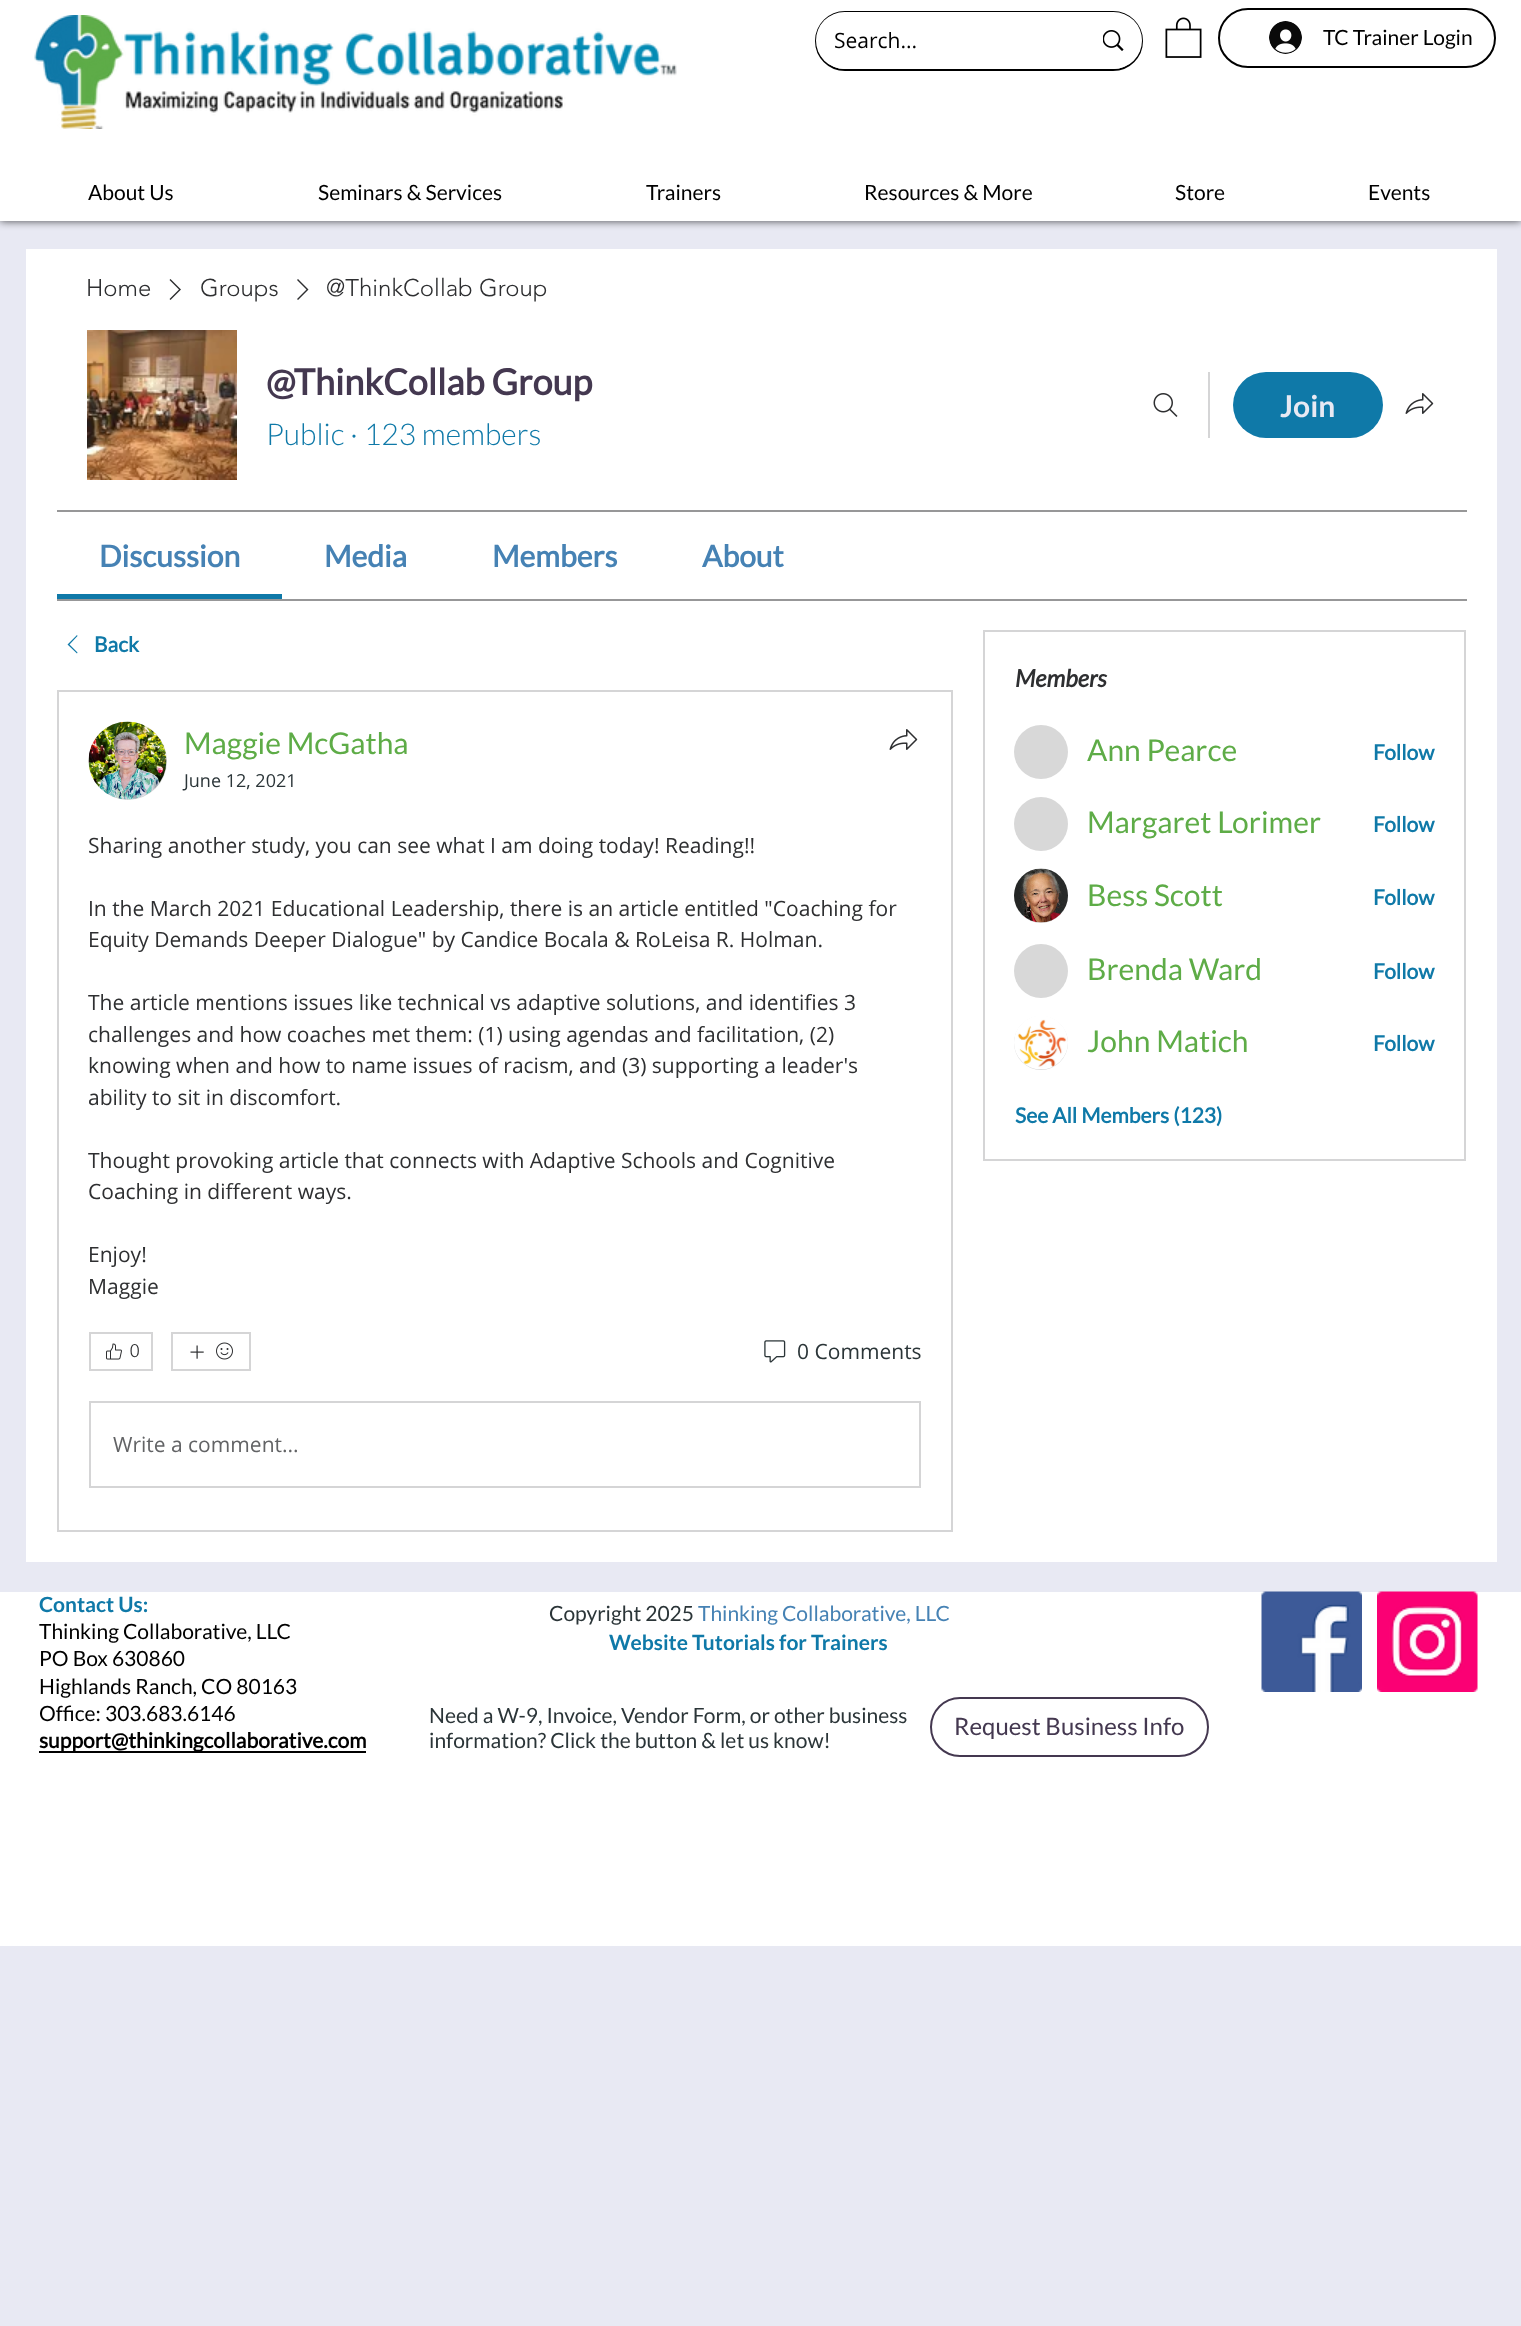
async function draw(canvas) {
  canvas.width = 1521;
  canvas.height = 2326;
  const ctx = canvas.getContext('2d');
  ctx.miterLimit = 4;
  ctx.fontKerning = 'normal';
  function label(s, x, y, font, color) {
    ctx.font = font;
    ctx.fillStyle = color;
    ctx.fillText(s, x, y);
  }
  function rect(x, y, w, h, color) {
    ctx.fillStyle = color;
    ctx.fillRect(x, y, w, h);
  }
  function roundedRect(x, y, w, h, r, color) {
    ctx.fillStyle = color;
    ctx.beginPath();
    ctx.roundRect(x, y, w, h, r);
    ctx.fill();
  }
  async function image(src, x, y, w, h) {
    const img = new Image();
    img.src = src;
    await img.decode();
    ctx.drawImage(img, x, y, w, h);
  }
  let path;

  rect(0, 0, 1521, 2326, '#e8e9f3');
  ctx.fillStyle = '#000000b3';
  ctx.filter = 'blur(4px)';
  ctx.beginPath();
  ctx.rect(0, 0, 1521, 221);
  ctx.fill();
  ctx.filter = 'none';
  rect(0, 0, 1521, 221, '#fff');
  await image('assets/img1.png', 34, 15, 643, 114);
  ctx.beginPath();
  ctx.roundRect(816, 12, 326, 58, 29);
  ctx.strokeStyle = '#000';
  ctx.lineWidth = 2;
  ctx.stroke();
  roundedRect(816, 12, 326, 57, 28.5, '#fff');
  label('Search...', 834, 48, '21px Open Sans', '#000');
  await image('assets/img2.png', 1103, 30, 21, 21);
  await image('assets/img3.png', 1165, 17, 37, 41);
  ctx.beginPath();
  ctx.roundRect(1219, 9, 276, 58, 29);
  ctx.stroke();
  await image('assets/img4.png', 1269, 21, 33, 33);
  label('TC Trainer Login', 1323, 45, '21px Lato', '#000');
  label('About Us', 88, 200, '21px Lato', '#000');
  label('Seminars & Services', 318, 200, '21px Lato', '#000');
  label('Trainers', 646, 200, '21px Lato', '#000');
  label('Resources & More', 864, 200, '21px Lato', '#000');
  label('Store', 1175, 200, '21px Lato', '#000');
  label('Events', 1368, 200, '21px Lato', '#000');
  rect(26, 249, 1471, 1313, '#fff');
  label('Home', 86, 296, '300 24px "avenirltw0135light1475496"', '#2e2f31');
  path = new Path2D('M170.5 279L181 289.5L170.5 300L169.5 299L179 289.5L169.5 280Z');
  ctx.fill(path, 'evenodd');
  label('Groups', 200, 296, '300 24px "avenirltw0135light1475496"', '#2e2f31');
  path = new Path2D('M298 279L308.5 289.5L298 300L297 299L306.5 289.5L297 280Z');
  ctx.fill(path, 'evenodd');
  label('@ThinkCollab Group', 326, 296, '300 24px "avenirltw0135light1475496"', '#2e2f31');
  await image('assets/img5.png', 87, 330, 150, 150);
  label('@ThinkCollab Group', 266, 395, 'bold 36px Lato', '#443850');
  label('Public · 123 members', 266, 445, '300 30px Lato', '#0f79a8');
  await image('assets/img6.png', 1153, 393, 25, 24);
  rect(1208, 372, 2, 66, '#d5d5d6');
  roundedRect(1233, 372, 150, 66, 33, '#0f79a8');
  label('Join', 1280, 417, 'bold 30px "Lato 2"', '#e8e9f3');
  await image('assets/img7.png', 1405, 393, 29, 21);
  rect(57, 510, 1410, 2, '#979798');
  rect(57, 599, 1410, 2, '#979798');
  rect(57, 594, 225, 5, '#0f79a8');
  label('Discussion', 99, 567, 'bold 30px Lato', '#4682b4');
  label('Media', 324, 567, 'bold 30px Lato', '#4682b4');
  label('Members', 492, 567, 'bold 30px Lato', '#4682b4');
  label('About', 702, 567, 'bold 30px Lato', '#4682b4');
  ctx.fillStyle = '#0f79a8';
  path = new Path2D('M77 635L77.5 636L69.5 644.5L77.5 652.5L77 653.5L67.5 644.5Z');
  ctx.fill(path, 'evenodd');
  label('Back', 94, 652, 'bold 21px Lato', '#0f79a8');
  ctx.strokeStyle = '#d5d5d6';
  ctx.strokeRect(58, 691, 894, 840);
  ctx.fillStyle = '#d8d8d8';
  ctx.beginPath();
  ctx.arc(128, 761, 39, 0, 2 * Math.PI);
  ctx.fill();
  await image('assets/img8.png', 88, 721, 79, 79);
  label('Maggie McGatha', 184, 754, '30px Lato', '#5eac47');
  label('June 12, 2021', 184, 787, '18px Open Sans', '#2b3538');
  await image('assets/img7.png', 889, 729, 29, 21);
  label('Sharing another study, you can see what I am doing today! Reading!!', 88, 853, '21px Open Sans', '#2e2f31');
  label('In the March 2021 Educational Leadership, there is an article entitled "Coaching for', 88, 916, '21px Open Sans', '#2e2f31');
  label('Equity Demands Deeper Dialogue" by Candice Bocala & RoLeisa R. Holman.', 88, 947, '21px Open Sans', '#2e2f31');
  label('The article mentions issues like technical vs adaptive solutions, and identifies 3', 88, 1010, '21px Open Sans', '#2e2f31');
  label('challenges and how coaches met them: (1) using agendas and facilitation, (2)', 88, 1042, '21px Open Sans', '#2e2f31');
  label('knowing when and how to name issues of racism, and (3) supporting a leader\'s', 88, 1073, '21px Open Sans', '#2e2f31');
  label('ability to sit in discomfort.', 88, 1105, '21px Open Sans', '#2e2f31');
  label('Thought provoking article that connects with Adaptive Schools and Cognitive', 88, 1168, '21px Open Sans', '#2e2f31');
  label('Coaching in different ways.', 88, 1199, '21px Open Sans', '#2e2f31');
  label('Enjoy!', 88, 1262, '21px Open Sans', '#2e2f31');
  label('Maggie', 88, 1294, '21px Open Sans', '#2e2f31');
  ctx.strokeRect(90, 1333, 62, 37);
  await image('assets/img9.png', 106, 1343, 16, 17);
  label('0', 130, 1357, '300 18px "avenirltw0135light1475496"', '#2e2f31');
  ctx.strokeRect(172, 1333, 78, 37);
  await image('assets/img10.png', 190, 1345, 14, 14);
  await image('assets/img11.png', 216, 1342, 17, 18);
  await image('assets/img12.png', 764, 1340, 22, 23);
  label('0 Comments', 797, 1359, '21px Open Sans', '#2b3538');
  ctx.strokeRect(90, 1402, 830, 85);
  label('Write a comment...', 113, 1452, '21px Open Sans', '#626365');
  ctx.strokeRect(984, 631, 481, 529);
  label('Members', 1015, 687, 'italic bold 24px Lato', '#2e2f31');
  ctx.fillStyle = '#d8d8d8';
  ctx.beginPath();
  ctx.arc(1041, 752, 27, 0, 2 * Math.PI);
  ctx.fill();
  label('Ann Pearce', 1087, 761, '30px Lato', '#5eac47');
  label('Follow', 1373, 760, 'bold 21px Lato', '#0f79a8');
  ctx.fillStyle = '#d8d8d8';
  ctx.beginPath();
  ctx.arc(1041, 824, 27, 0, 2 * Math.PI);
  ctx.fill();
  label('Margaret Lorimer', 1087, 833, '30px Lato', '#5eac47');
  label('Follow', 1373, 832, 'bold 21px Lato', '#0f79a8');
  ctx.fillStyle = '#d8d8d8';
  ctx.beginPath();
  ctx.arc(1041, 896, 27, 0, 2 * Math.PI);
  ctx.fill();
  await image('assets/img13.png', 1014, 868, 54, 55);
  label('Bess Scott', 1087, 906, '30px Lato', '#5eac47');
  label('Follow', 1373, 905, 'bold 21px Lato', '#0f79a8');
  ctx.fillStyle = '#d8d8d8';
  ctx.beginPath();
  ctx.arc(1041, 971, 27, 0, 2 * Math.PI);
  ctx.fill();
  label('Brenda Ward', 1087, 980, '30px Lato', '#5eac47');
  label('Follow', 1373, 979, 'bold 21px Lato', '#0f79a8');
  ctx.fillStyle = '#d8d8d8';
  ctx.beginPath();
  ctx.arc(1041, 1043, 27, 0, 2 * Math.PI);
  ctx.fill();
  await image('assets/img14.png', 1014, 1016, 54, 54);
  label('John Matich', 1087, 1052, '30px Lato', '#5eac47');
  label('Follow', 1373, 1051, 'bold 21px Lato', '#0f79a8');
  label('See All Members (123)', 1015, 1123, 'bold 21px Lato', '#0f79a8');
  rect(0, 1592, 1521, 354, '#fff');
  label('Contact Us:', 39, 1612, 'bold 21px "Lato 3"', '#0f79a8');
  label('Thinking Collaborative, LLC', 39, 1639, '21px Lato', '#000');
  label('PO Box 630860', 39, 1666, '21px Lato', '#000');
  label('Highlands Ranch, CO 80163', 39, 1694, '21px Lato', '#000');
  label('Office: 303.683.6146', 39, 1721, '21px Lato', '#000');
  rect(39, 1751, 327, 2, '#000');
  label('support@thinkingcollaborative.com', 39, 1748, 'bold 21px Lato', '#000');
  label('Copyright 2025', 549, 1621, '21px Lato', '#2b3538');
  label('Thinking Collaborative, LLC', 698, 1621, '21px Lato', '#4682b4');
  await image('assets/img15.png', 1261, 1591, 101, 101);
  await image('assets/img16.png', 1377, 1591, 101, 101);
  label('Website Tutorials for Trainers', 609, 1650, 'bold 21px "Lato 2"', '#0f79a8');
  label('Need a W-9, Invoice, Vendor Form, or other business', 429, 1723, '21px Lato', '#2b3538');
  label('information? Click the button & let us know!', 429, 1748, '21px Lato', '#2b3538');
  ctx.beginPath();
  ctx.roundRect(931, 1698, 277, 58, 29);
  ctx.strokeStyle = '#443850';
  ctx.stroke();
  label('Request Business Info', 954, 1735, '24px Lato', '#443850');
}

draw(document.querySelector('canvas'));
